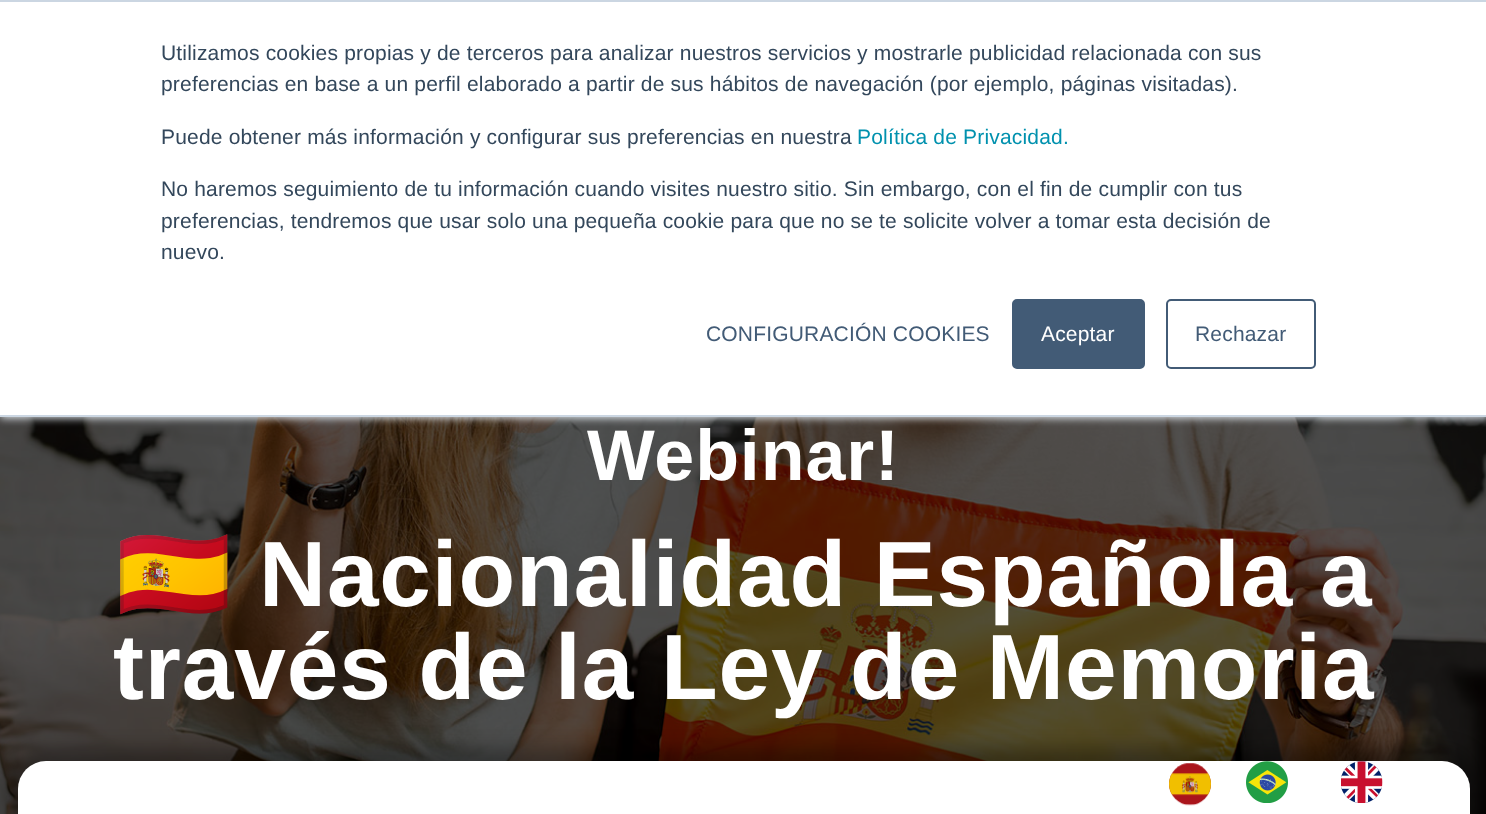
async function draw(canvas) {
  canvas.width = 1486;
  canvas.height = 814;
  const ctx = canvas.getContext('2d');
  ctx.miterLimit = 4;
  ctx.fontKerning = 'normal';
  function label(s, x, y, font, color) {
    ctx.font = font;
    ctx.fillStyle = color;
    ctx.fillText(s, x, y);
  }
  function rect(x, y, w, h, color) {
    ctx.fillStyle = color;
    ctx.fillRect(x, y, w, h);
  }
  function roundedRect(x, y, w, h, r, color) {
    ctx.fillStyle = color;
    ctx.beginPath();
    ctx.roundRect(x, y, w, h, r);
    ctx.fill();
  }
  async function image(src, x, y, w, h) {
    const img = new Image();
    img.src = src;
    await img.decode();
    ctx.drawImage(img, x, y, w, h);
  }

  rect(0, 0, 1486, 814, '#fff');
  await image('assets/img1.png', 0, 417, 1486, 397);
  ctx.fillStyle = '#eaf0f6';
  ctx.filter = 'blur(4.5px)';
  ctx.beginPath();
  ctx.rect(0, 2, 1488, 416);
  ctx.fill();
  ctx.filter = 'none';
  rect(0, 2, 1486, 413, '#fff');
  rect(0, 0, 1486, 2, '#cbd6e2');
  rect(0, 415, 1486, 2, '#cbd6e2');
  ctx.letterSpacing = '0.18px';
  label('Utilizamos cookies propias y de terceros para analizar nuestros servicios y mostrarle publicidad relacionada con sus', 161, 60, '21px Liberation Sans', '#33475b');
  label('preferencias en base a un perfil elaborado a partir de sus hábitos de navegación (por ejemplo, páginas visitadas).', 161, 91, '21px Liberation Sans', '#33475b');
  label('Puede obtener más información y configurar sus preferencias en nuestra', 161, 144, '21px Liberation Sans', '#33475b');
  label('Política de Privacidad.', 857, 144, '21px Liberation Sans', '#0091ae');
  label('No haremos seguimiento de tu información cuando visites nuestro sitio. Sin embargo, con el fin de cumplir con tus', 161, 196, '21px Liberation Sans', '#33475b');
  label('preferencias, tendremos que usar solo una pequeña cookie para que no se te solicite volver a tomar esta decisión de', 161, 228, '21px Liberation Sans', '#33475b');
  label('nuevo.', 161, 259, '21px Liberation Sans', '#33475b');
  label('CONFIGURACIÓN COOKIES', 706, 341, '21px Liberation Sans', '#425b76');
  ctx.beginPath();
  ctx.roundRect(1013, 300, 131, 68, 4);
  ctx.fill();
  ctx.strokeStyle = '#425b76';
  ctx.lineWidth = 2;
  ctx.stroke();
  label('Aceptar', 1041, 341, '21px Liberation Sans', '#fff');
  ctx.beginPath();
  ctx.roundRect(1167, 300, 148, 68, 4);
  ctx.stroke();
  label('Rechazar', 1195, 341, '21px Liberation Sans', '#425b76');
  ctx.letterSpacing = '0.9px';
  label('Webinar!', 587, 480, 'bold 71.75px Liberation Sans', '#fff');
  label('🇪🇸', 116, 606, 'bold 92.75px Noto Color Emoji', '#fff');
  label('Nacionalidad Española a', 259, 606, 'bold 92.75px Liberation Sans', '#fff');
  label('través de la Ley de Memoria', 113, 699, 'bold 92.75px Liberation Sans', '#fff');
  ctx.fillStyle = '#00000054';
  ctx.filter = 'blur(9px)';
  ctx.beginPath();
  ctx.roundRect(5, 749, 1477, 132, 40);
  ctx.fill();
  ctx.filter = 'none';
  roundedRect(18, 761, 1452, 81, 28, '#fff');
  await image('assets/img2.png', 1169, 763, 42, 43);
  await image('assets/img3.png', 1246, 761, 42, 42);
  await image('assets/img4.png', 1341, 761, 42, 42);
}

draw(document.querySelector('canvas'));
